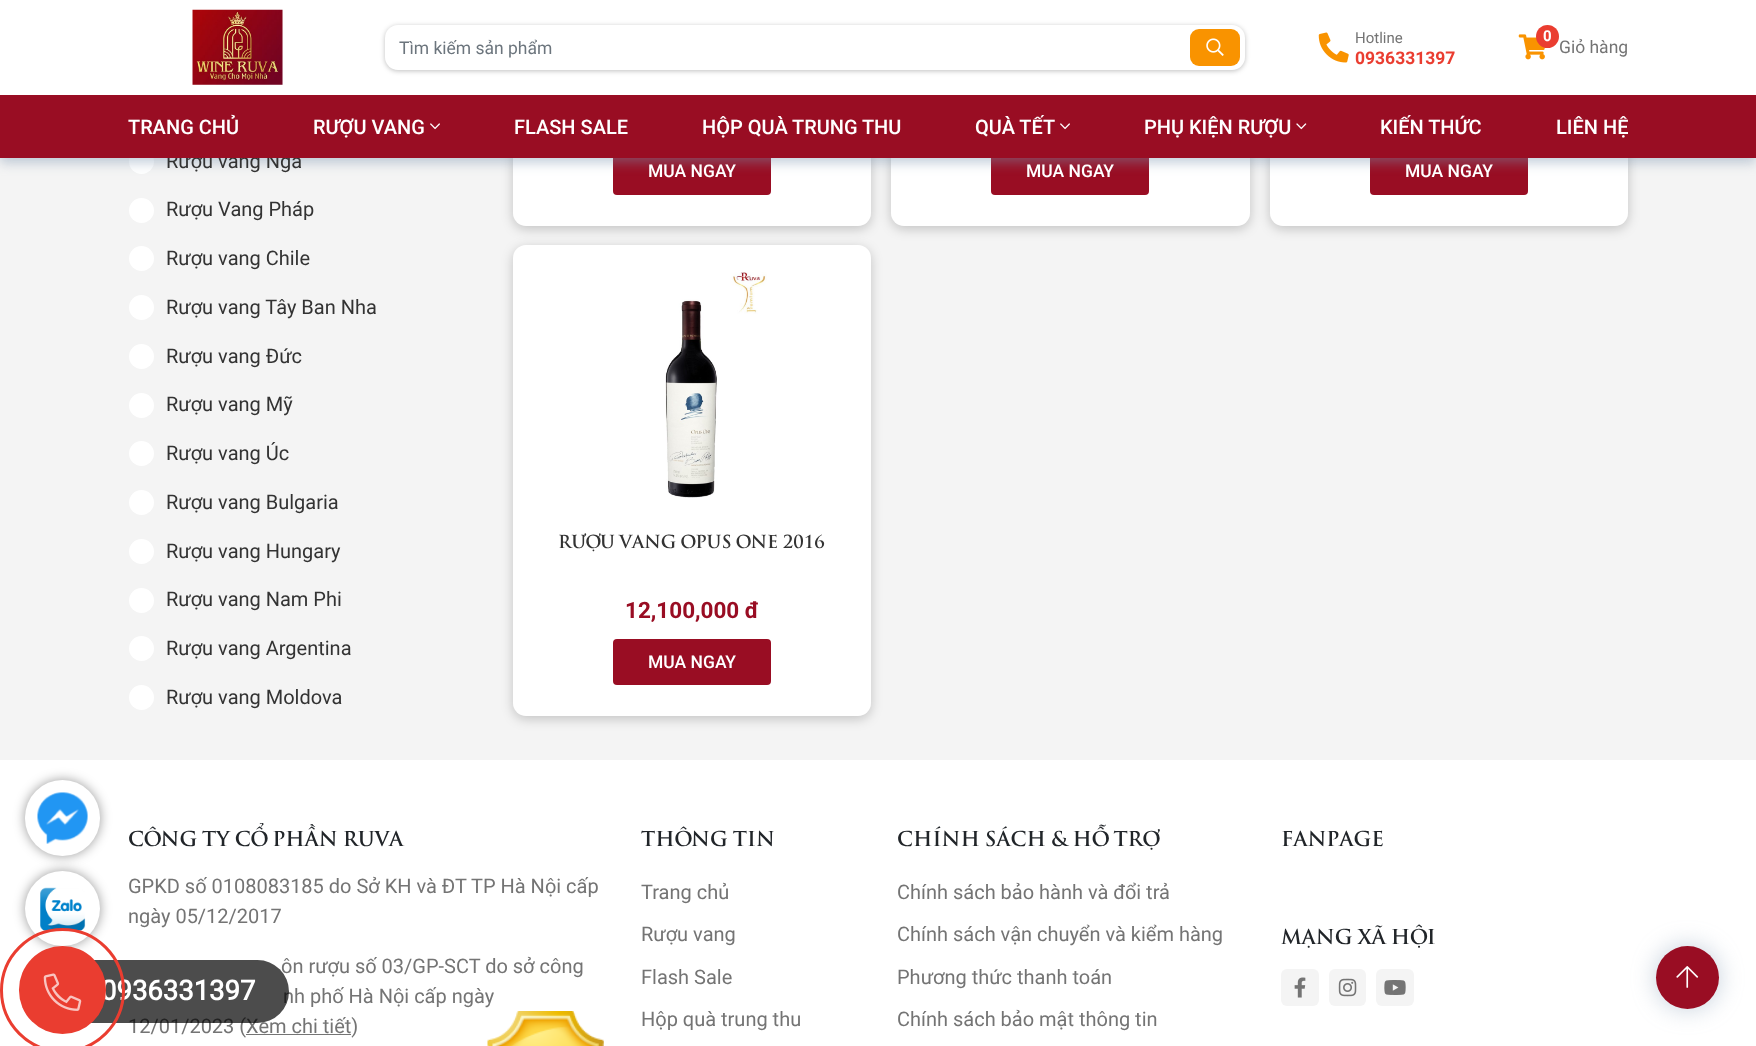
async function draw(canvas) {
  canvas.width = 1756;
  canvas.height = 1046;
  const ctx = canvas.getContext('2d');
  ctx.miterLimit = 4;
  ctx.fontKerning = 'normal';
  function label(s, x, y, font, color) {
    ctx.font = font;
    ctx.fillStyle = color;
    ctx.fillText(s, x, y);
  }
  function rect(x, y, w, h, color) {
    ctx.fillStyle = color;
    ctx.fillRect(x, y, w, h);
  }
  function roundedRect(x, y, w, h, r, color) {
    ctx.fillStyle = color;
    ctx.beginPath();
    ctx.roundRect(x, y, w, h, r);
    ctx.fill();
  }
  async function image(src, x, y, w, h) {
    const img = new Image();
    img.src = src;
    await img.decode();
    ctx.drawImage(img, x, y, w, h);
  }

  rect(0, 0, 1756, 1046, '#fff');
  rect(0, 158, 1756, 602, '#f4f4f4');
  ctx.fillStyle = '#fff';
  ctx.beginPath();
  ctx.arc(141.5, 161.5, 12.5, 0, 2 * Math.PI);
  ctx.fill();
  ctx.fillStyle = '#00000033';
  ctx.filter = 'blur(6px)';
  ctx.beginPath();
  ctx.roundRect(513, -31, 358, 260, 13);
  ctx.fill();
  ctx.filter = 'none';
  roundedRect(513, -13, 358, 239, 13, '#fff');
  roundedRect(613, 149, 158, 46, 4, '#990d23');
  ctx.fillStyle = '#00000033';
  ctx.filter = 'blur(6px)';
  ctx.beginPath();
  ctx.roundRect(891, -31, 359, 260, 13);
  ctx.fill();
  ctx.filter = 'none';
  roundedRect(891, -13, 359, 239, 13, '#fff');
  roundedRect(991, 149, 158, 46, 4, '#990d23');
  ctx.fillStyle = '#00000033';
  ctx.filter = 'blur(6px)';
  ctx.beginPath();
  ctx.roundRect(1270, -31, 358, 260, 13);
  ctx.fill();
  ctx.filter = 'none';
  roundedRect(1270, -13, 358, 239, 13, '#fff');
  roundedRect(1370, 149, 158, 46, 4, '#990d23');
  ctx.fillStyle = '#7991ad70';
  ctx.filter = 'blur(6px)';
  ctx.beginPath();
  ctx.rect(0, 5, 1756, 158);
  ctx.fill();
  ctx.filter = 'none';
  rect(0, 0, 1756, 95, '#fff');
  await image('assets/img1.png', 192, 9, 91, 76);
  ctx.fillStyle = '#00000040';
  ctx.filter = 'blur(2.5px)';
  ctx.beginPath();
  ctx.roundRect(385, 26, 860, 45, 13);
  ctx.fill();
  ctx.filter = 'none';
  roundedRect(385, 25, 860, 45, 13, '#fff');
  label('Tìm kiếm sản phẩm', 399, 54, '17.5px Roboto', '#6c757d');
  roundedRect(1190, 29, 50, 37, 9, '#f99300');
  await image('assets/img2.png', 1206, 38, 18, 18);
  await image('assets/img3.png', 1318, 32, 31, 31);
  label('Hotline', 1355, 43, '15px Roboto', '#747474');
  label('0936331397', 1355, 64, 'bold 17.5px Roboto', '#ea3d30');
  await image('assets/img4.png', 1518, 34, 27, 26);
  ctx.beginPath();
  ctx.arc(1547.5, 36.5, 11.5, 0, 2 * Math.PI);
  ctx.fill();
  label('0', 1543, 41, 'bold 15px Roboto', '#fff');
  label('Giỏ hàng', 1559, 53, '17.5px Roboto', '#747474');
  label('Rượu vang Nga', 166, 168, '20px Roboto', '#333');
  rect(0, 95, 1756, 63, '#990d23');
  label('TRANG CHỦ', 128, 134, '500 20px Roboto', '#fff');
  label('RƯỢU VANG', 313, 134, '500 20px Roboto', '#fff');
  await image('assets/img5.png', 430, 123, 10, 7);
  label('FLASH SALE', 514, 134, '500 20px Roboto', '#fff');
  label('HỘP QUÀ TRUNG THU', 702, 134, '500 20px Roboto', '#fff');
  label('QUÀ TẾT', 975, 134, '500 20px Roboto', '#fff');
  await image('assets/img5.png', 1060, 123, 10, 7);
  label('PHỤ KIỆN RƯỢU', 1144, 134, '500 20px Roboto', '#fff');
  await image('assets/img6.png', 1296, 123, 11, 7);
  label('KIẾN THỨC', 1380, 134, '500 20px Roboto', '#fff');
  label('LIÊN HỆ', 1556, 134, '500 20px Roboto', '#fff');
  ctx.beginPath();
  ctx.arc(141.5, 210.5, 12.5, 0, 2 * Math.PI);
  ctx.fill();
  label('Rượu Vang Pháp', 166, 216, '20px Roboto', '#333');
  ctx.fillStyle = '#fff';
  ctx.beginPath();
  ctx.arc(141.5, 258.5, 12.5, 0, 2 * Math.PI);
  ctx.fill();
  label('Rượu vang Chile', 166, 265, '20px Roboto', '#333');
  ctx.fillStyle = '#fff';
  ctx.beginPath();
  ctx.arc(141.5, 307.5, 12.5, 0, 2 * Math.PI);
  ctx.fill();
  label('Rượu vang Tây Ban Nha', 166, 314, '20px Roboto', '#333');
  ctx.fillStyle = '#fff';
  ctx.beginPath();
  ctx.arc(141.5, 356.5, 12.5, 0, 2 * Math.PI);
  ctx.fill();
  label('Rượu vang Đức', 166, 363, '20px Roboto', '#333');
  ctx.fillStyle = '#fff';
  ctx.beginPath();
  ctx.arc(141.5, 405.5, 12.5, 0, 2 * Math.PI);
  ctx.fill();
  label('Rượu vang Mỹ', 166, 411, '20px Roboto', '#333');
  ctx.fillStyle = '#fff';
  ctx.beginPath();
  ctx.arc(141.5, 453.5, 12.5, 0, 2 * Math.PI);
  ctx.fill();
  label('Rượu vang Úc', 166, 460, '20px Roboto', '#333');
  ctx.fillStyle = '#fff';
  ctx.beginPath();
  ctx.arc(141.5, 502.5, 12.5, 0, 2 * Math.PI);
  ctx.fill();
  label('Rượu vang Bulgaria', 166, 509, '20px Roboto', '#333');
  ctx.fillStyle = '#fff';
  ctx.beginPath();
  ctx.arc(141.5, 551.5, 12.5, 0, 2 * Math.PI);
  ctx.fill();
  label('Rượu vang Hungary', 166, 558, '20px Roboto', '#333');
  ctx.fillStyle = '#fff';
  ctx.beginPath();
  ctx.arc(141.5, 600.5, 12.5, 0, 2 * Math.PI);
  ctx.fill();
  label('Rượu vang Nam Phi', 166, 606, '20px Roboto', '#333');
  ctx.fillStyle = '#fff';
  ctx.beginPath();
  ctx.arc(141.5, 648.5, 12.5, 0, 2 * Math.PI);
  ctx.fill();
  label('Rượu vang Argentina', 166, 655, '20px Roboto', '#333');
  ctx.fillStyle = '#fff';
  ctx.beginPath();
  ctx.arc(141.5, 697.5, 12.5, 0, 2 * Math.PI);
  ctx.fill();
  label('Rượu vang Moldova', 166, 704, '20px Roboto', '#333');
  label('MUA NGAY', 648, 177, '500 17.5px Roboto', '#fff');
  label('MUA NGAY', 1026, 177, '500 17.5px Roboto', '#fff');
  label('MUA NGAY', 1405, 177, '500 17.5px Roboto', '#fff');
  ctx.fillStyle = '#00000033';
  ctx.filter = 'blur(6px)';
  ctx.beginPath();
  ctx.roundRect(513, 248, 358, 471, 13);
  ctx.fill();
  ctx.filter = 'none';
  roundedRect(513, 245, 358, 471, 13, '#fff');
  await image('assets/img7.png', 665, 272, 102, 226);
  label('RƯỢU VANG OPUS ONE 2016', 558, 548, 'bold 17.5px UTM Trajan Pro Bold', '#333');
  label('12,100,000 đ', 625, 618, 'bold 22.5px Roboto', '#990d23');
  roundedRect(613, 639, 158, 46, 4, '#990d23');
  label('MUA NGAY', 648, 668, '500 17.5px Roboto', '#fff');
  ctx.fillStyle = '#00000066';
  ctx.filter = 'blur(6px)';
  ctx.beginPath();
  ctx.roundRect(25, 780, 75, 76, 37.5);
  ctx.fill();
  ctx.filter = 'none';
  roundedRect(25, 780, 75, 76, 37.5, '#fff');
  await image('assets/img8.png', 37, 792, 51, 52);
  label('CÔNG TY CỔ PHẦN RUVA', 128, 846, 'bold 20px UTM Trajan Pro Bold', '#212529');
  label('GPKD số 0108083185 do Sở KH và ĐT TP Hà Nội cấp', 128, 893, '20px Roboto', '#747474');
  label('ngày 05/12/2017', 128, 923, '20px Roboto', '#747474');
  label('ôn rượu số 03/GP-SCT do sở công', 281, 973, '20px Roboto', '#747474');
  label('nh phố Hà Nội cấp ngày', 283, 1003, '20px Roboto', '#747474');
  label('12/01/2023 (Xem chi tiết)', 128, 1033, '20px Roboto', '#747474');
  await image('assets/img9.png', 487, 1011, 117, 35);
  rect(246, 1034, 105, 1, '#747474');
  label('THÔNG TIN', 641, 846, 'bold 20px UTM Trajan Pro Bold', '#212529');
  label('Trang chủ', 641, 899, '20px Roboto', '#747474');
  label('Rượu vang', 641, 941, '20px Roboto', '#747474');
  label('Flash Sale', 641, 984, '20px Roboto', '#747474');
  label('Hộp quà trung thu', 641, 1026, '20px Roboto', '#747474');
  label('CHÍNH SÁCH & HỖ TRỢ', 897, 846, 'bold 20px UTM Trajan Pro Bold', '#212529');
  label('Chính sách bảo hành và đổi trả', 897, 899, '20px Roboto', '#747474');
  label('Chính sách vận chuyển và kiểm hàng', 897, 941, '20px Roboto', '#747474');
  label('Phương thức thanh toán', 897, 984, '20px Roboto', '#747474');
  label('Chính sách bảo mật thông tin', 897, 1026, '20px Roboto', '#747474');
  label('FANPAGE', 1281, 846, 'bold 20px UTM Trajan Pro Bold', '#212529');
  label('MẠNG XÃ HỘI', 1281, 944, 'bold 20px UTM Trajan Pro Bold', '#212529');
  roundedRect(1281, 969, 38, 37, 6, '#f4f4f4');
  await image('assets/img10.png', 1294, 977, 12, 21);
  roundedRect(1329, 969, 37, 37, 6, '#f4f4f4');
  await image('assets/img11.png', 1338, 978, 19, 19);
  roundedRect(1376, 969, 38, 37, 6, '#f4f4f4');
  await image('assets/img12.png', 1384, 980, 22, 15);
  ctx.fillStyle = '#00000066';
  ctx.filter = 'blur(6px)';
  ctx.beginPath();
  ctx.roundRect(25, 871, 75, 75, 37.5);
  ctx.fill();
  ctx.filter = 'none';
  ctx.fillStyle = '#fff';
  ctx.beginPath();
  ctx.arc(62.5, 908.5, 37.5, 0, 2 * Math.PI);
  ctx.fill();
  await image('assets/img13.png', 40, 887, 46, 44);
  roundedRect(33, 960, 256, 63, 31.5, '#000000b3');
  label('0936331397', 101, 1000, 'bold 27.5px "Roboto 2"', '#fff');
  ctx.beginPath();
  ctx.arc(62.5, 990.5, 61, 0, 2 * Math.PI);
  ctx.strokeStyle = '#ea3d30';
  ctx.lineWidth = 3;
  ctx.stroke();
  roundedRect(19, 946, 87, 88, 43.5, '#ea3d30');
  await image('assets/img14.png', 43, 973, 39, 38);
  ctx.fillStyle = '#7991ad70';
  ctx.filter = 'blur(12.5px)';
  ctx.beginPath();
  ctx.roundRect(1656, 946, 63, 63, 31.5);
  ctx.fill();
  ctx.filter = 'none';
  ctx.fillStyle = '#990d23';
  ctx.beginPath();
  ctx.arc(1687.5, 977.5, 31.5, 0, 2 * Math.PI);
  ctx.fill();
  await image('assets/img15.png', 1676, 966, 23, 22);
}

draw(document.querySelector('canvas'));
